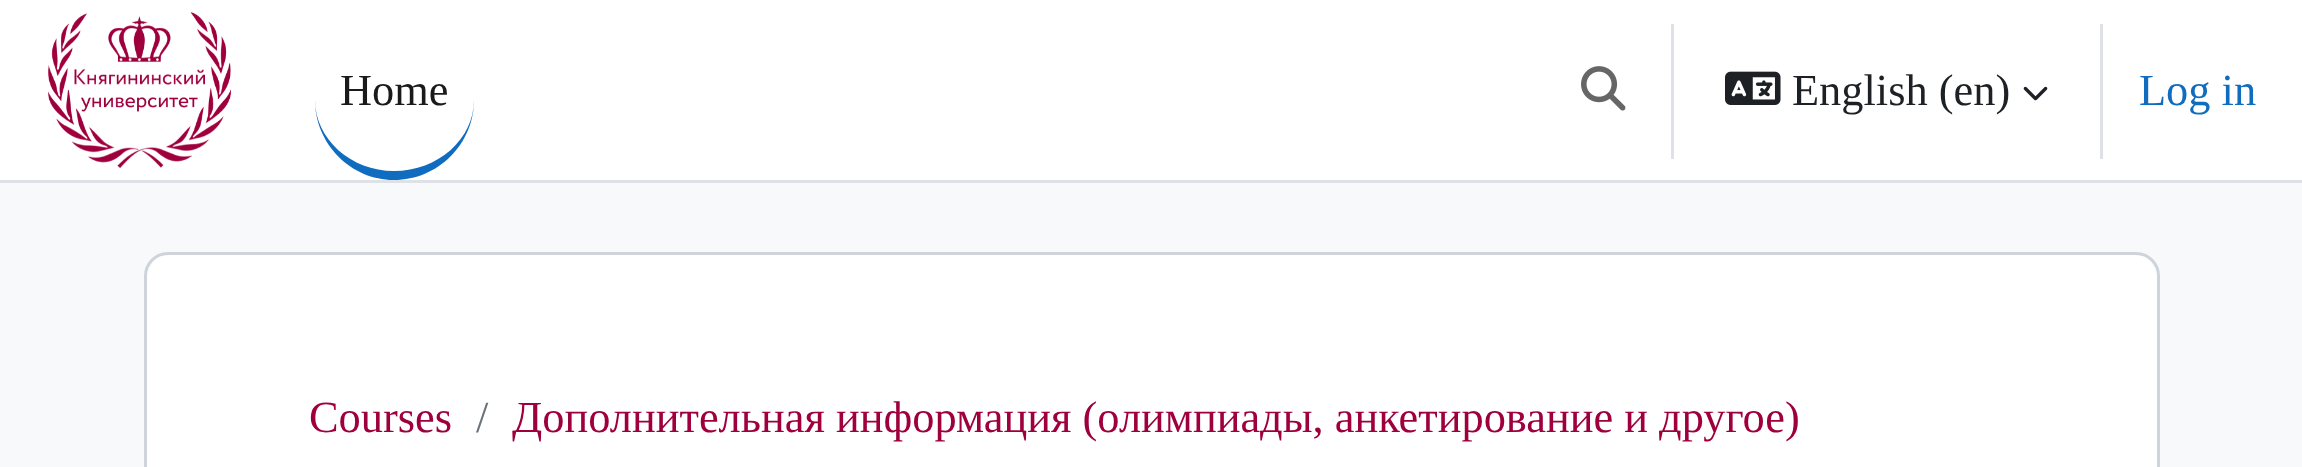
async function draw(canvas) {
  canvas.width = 2302;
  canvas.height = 467;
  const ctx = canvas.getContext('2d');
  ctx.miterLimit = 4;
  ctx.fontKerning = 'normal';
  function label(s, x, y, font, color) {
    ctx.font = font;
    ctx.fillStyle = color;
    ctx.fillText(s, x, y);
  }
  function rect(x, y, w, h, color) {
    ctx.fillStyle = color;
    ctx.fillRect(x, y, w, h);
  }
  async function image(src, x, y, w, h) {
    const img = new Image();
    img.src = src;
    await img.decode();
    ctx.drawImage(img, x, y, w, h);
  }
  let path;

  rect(0, 0, 2302, 467, '#f8f9fa');
  rect(0, 0, 2302, 180, '#fff');
  rect(0, 180, 2302, 3, '#dee2e6');
  await image('assets/img1.png', 48, 12, 183, 156);
  ctx.fillStyle = '#0f6cbf';
  path = new Path2D('M394 180C438 180 474 144 474 100C474 139 438 171 394 171C351 171 315 139 315 100C315 144 351 180 394 180Z');
  ctx.fill(path);
  label('Home', 340, 105, '44.4px Liberation Serif', '#1a1a1a');
  await image('assets/img2.png', 1581, 66, 45, 45);
  rect(1671, 24, 3, 135, '#dee2e6');
  await image('assets/img3.png', 1725, 71, 56, 34);
  label('English (en)', 1792, 105, '44.4px Liberation Serif', '#1d2125');
  await image('assets/img4.png', 2023, 86, 25, 15);
  rect(2100, 24, 3, 135, '#dee2e6');
  label('Log in', 2139, 105, '44.4px Liberation Serif', '#0f6cbf');
  ctx.fillStyle = '#fff';
  ctx.beginPath();
  ctx.roundRect(145.5, 253.5, 2013, 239, 22.5);
  ctx.fill();
  ctx.strokeStyle = '#ced4da';
  ctx.lineWidth = 3;
  ctx.stroke();
  label('Courses', 309, 432, '44.4px Liberation Serif', '#9f003d');
  label('/', 476, 432, '44.4px Liberation Serif', '#6a737b');
  label('Дополнительная информация (олимпиады, анкетирование и другое)', 512, 432, '44.4px Liberation Serif', '#9f003d');
}

draw(document.querySelector('canvas'));
